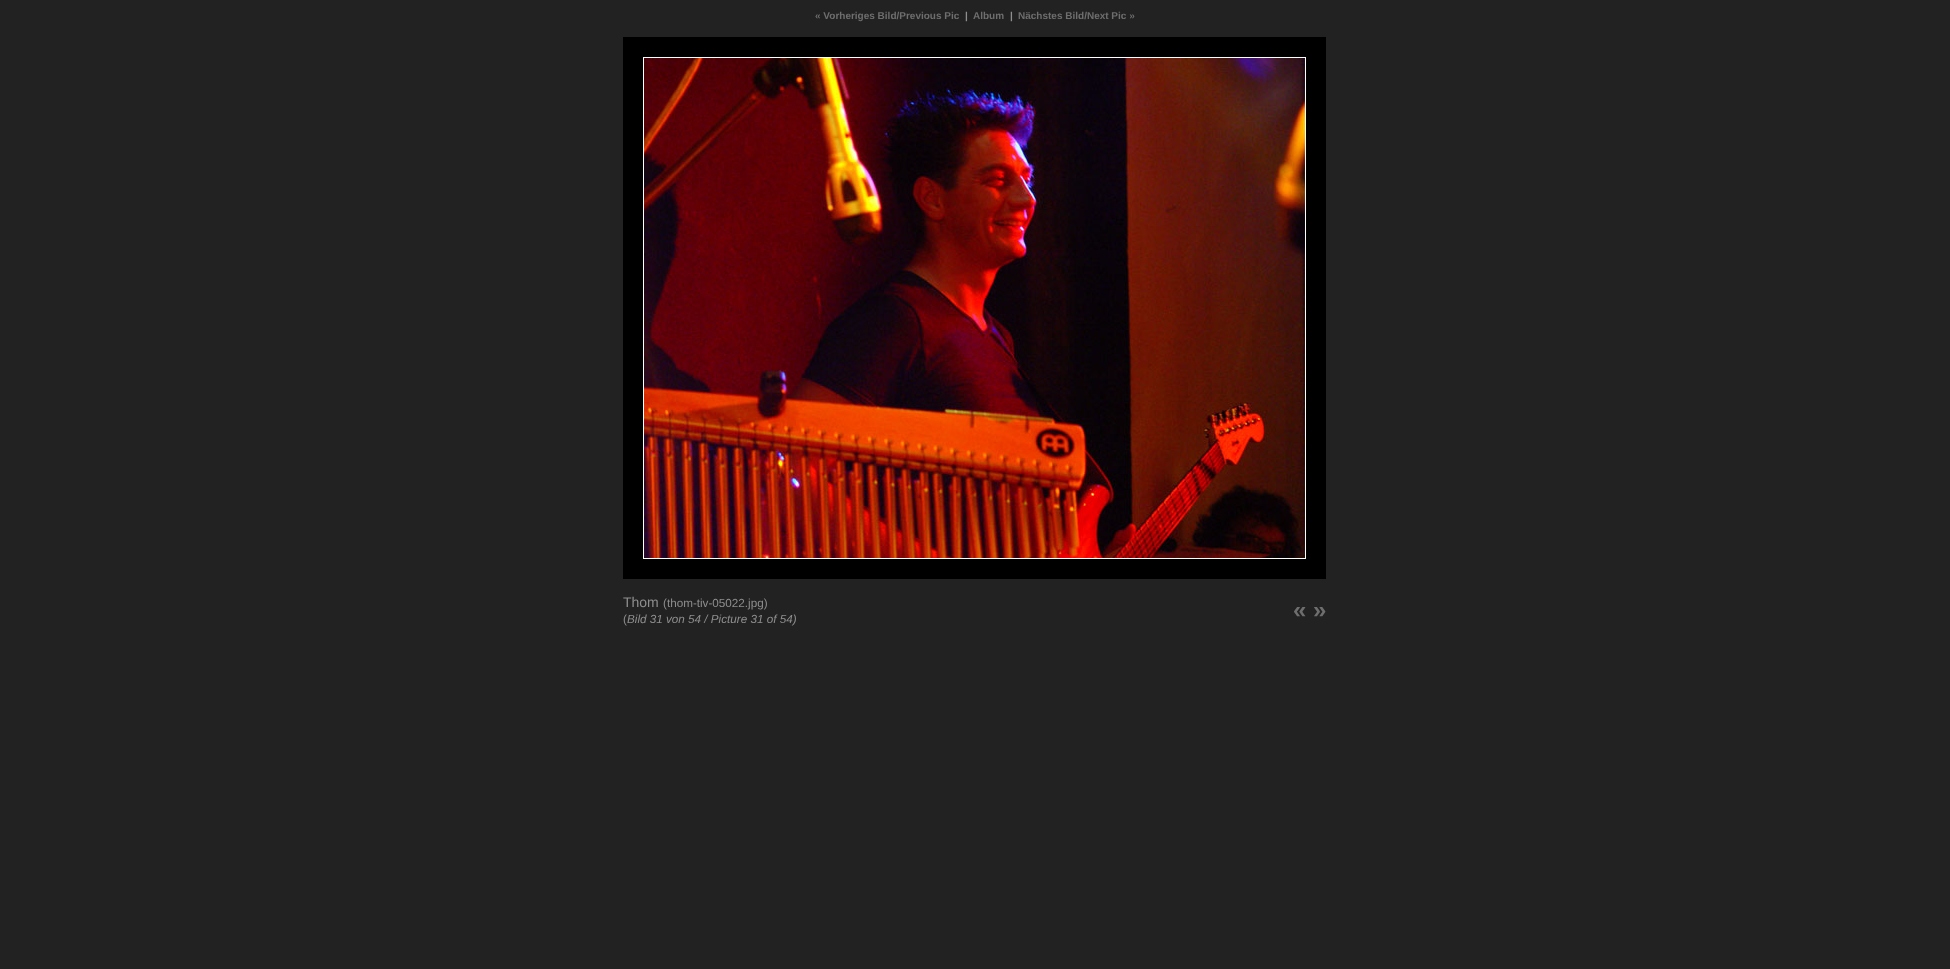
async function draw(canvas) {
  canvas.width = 1950;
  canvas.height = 969;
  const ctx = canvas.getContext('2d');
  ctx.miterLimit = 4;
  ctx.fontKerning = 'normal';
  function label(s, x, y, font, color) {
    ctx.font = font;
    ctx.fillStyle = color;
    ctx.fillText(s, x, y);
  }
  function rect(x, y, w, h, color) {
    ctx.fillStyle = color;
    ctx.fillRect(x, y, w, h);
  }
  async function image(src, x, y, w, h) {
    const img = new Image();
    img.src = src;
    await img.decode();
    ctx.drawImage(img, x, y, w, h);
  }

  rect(0, 0, 1950, 969, '#222');
  label('« Vorheriges Bild/Previous Pic', 815, 19, 'bold 10px Liberation Sans', '#6e6e6e');
  label('|', 965, 19, 'bold 10px Liberation Sans', '#8e8e8e');
  label('Album', 973, 19, 'bold 10px Liberation Sans', '#6e6e6e');
  label('|', 1010, 19, 'bold 10px Liberation Sans', '#8e8e8e');
  label('Nächstes Bild/Next Pic »', 1018, 19, 'bold 10px Liberation Sans', '#6e6e6e');
  ctx.fillStyle = '#fff';
  ctx.beginPath();
  ctx.rect(633, 47, 683, 522);
  ctx.fill();
  ctx.strokeStyle = '#000';
  ctx.lineWidth = 20;
  ctx.stroke();
  await image('assets/img1.png', 644, 58, 661, 500);
  label('Thom', 623, 607, '14px Liberation Sans', '#8e8e8e');
  label('(thom-tiv-05022.jpg)', 663, 607, '11.7px Liberation Sans', '#8e8e8e');
  label('(', 623, 623, '11.7px Liberation Sans', '#8e8e8e');
  label('Bild 31 von 54 / Picture 31 of 54)', 627, 623, 'italic 11.7px Liberation Sans', '#8e8e8e');
  label('« »', 1293, 618, 'bold 24px Liberation Sans', '#6e6e6e');
}

draw(document.querySelector('canvas'));
